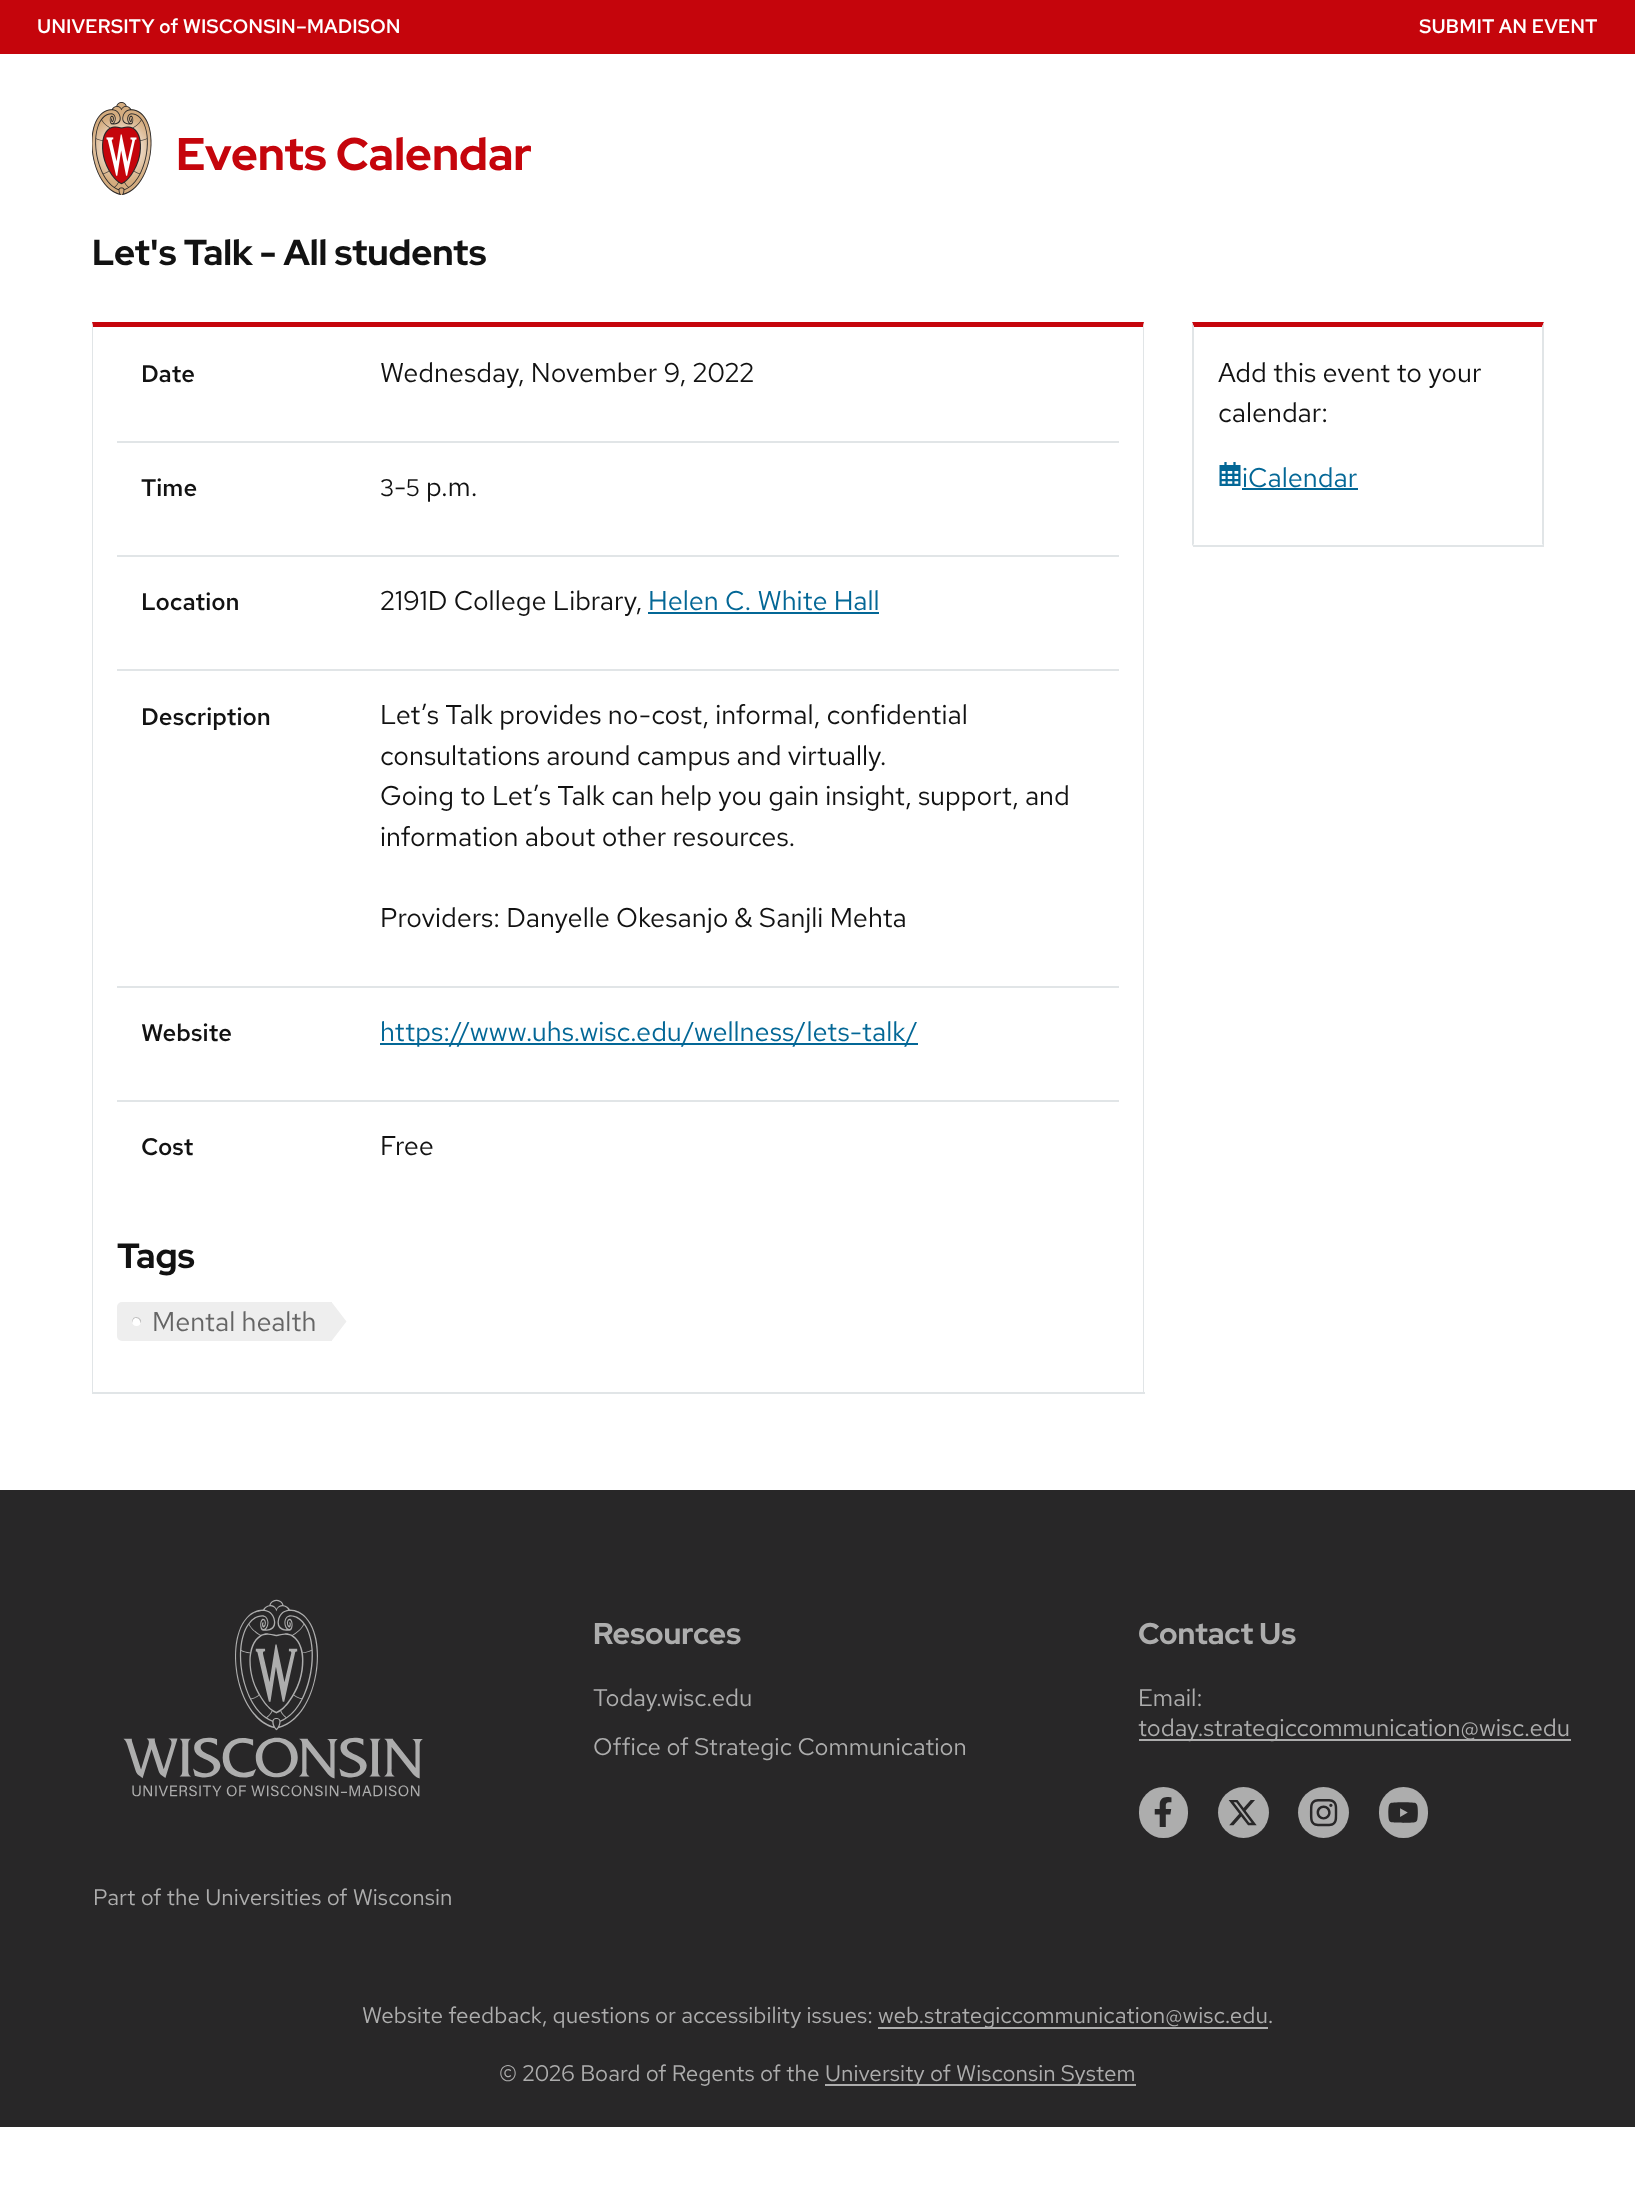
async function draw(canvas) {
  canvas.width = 1635;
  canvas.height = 2207;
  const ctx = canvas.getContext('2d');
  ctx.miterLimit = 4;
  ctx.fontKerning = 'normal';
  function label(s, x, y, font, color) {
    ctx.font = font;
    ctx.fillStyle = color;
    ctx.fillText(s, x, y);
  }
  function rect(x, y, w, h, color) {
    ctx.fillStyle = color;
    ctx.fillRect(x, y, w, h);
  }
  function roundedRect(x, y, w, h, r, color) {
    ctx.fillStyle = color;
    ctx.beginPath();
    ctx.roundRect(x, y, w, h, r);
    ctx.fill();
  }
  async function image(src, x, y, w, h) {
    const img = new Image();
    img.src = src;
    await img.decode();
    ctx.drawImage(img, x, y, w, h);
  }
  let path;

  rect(0, 0, 1635, 2207, '#fff');
  rect(0, 0, 1635, 54, '#c5050c');
  label('UNIVERSITY of WISCONSIN–MADISON', 37, 33, '500 19.5px Red Hat Text', '#fff');
  label('SUBMIT AN EVENT', 1419, 33, '500 19.5px Red Hat Text', '#fff');
  await image('assets/img1.png', 92, 102, 60, 93);
  label('Events Calendar', 176, 170, 'bold 45.75px Red Hat Display', '#c5050c');
  label('Let\'s Talk - All students', 92, 265, 'bold 36px Red Hat Display', '#121212');
  ctx.fillStyle = '#c5050c';
  path = new Path2D('M92 322H1144L1143 327H93Z');
  ctx.fill(path);
  ctx.fillStyle = '#e1e5e7';
  path = new Path2D('M1144 322V1394L1143 1392V327Z');
  ctx.fill(path);
  rect(92, 1392, 1053, 2, '#e1e5e7');
  path = new Path2D('M92 1394V322L93 327V1392Z');
  ctx.fill(path);
  label('Date', 141, 382, '600 24px Red Hat Text', '#121212');
  label('Wednesday, November 9, 2022', 380, 382, '27px Red Hat Text', '#121212');
  rect(117, 441, 1002, 2, '#e1e5e7');
  label('Time', 141, 496, '600 24px Red Hat Text', '#121212');
  label('3', 380, 496, '24px Red Hat Text', '#121212');
  label('-', 394, 496, '27px Red Hat Text', '#121212');
  label('5', 406, 496, '24px Red Hat Text', '#121212');
  label('p.m.', 426, 496, '27px Red Hat Text', '#121212');
  rect(117, 555, 1002, 2, '#e1e5e7');
  label('Location', 141, 610, '600 24px Red Hat Text', '#121212');
  label('2191D College Library,', 380, 610, '27px Red Hat Text', '#121212');
  label('Helen C. White Hall', 648, 610, '27px Red Hat Text', '#036796');
  rect(648, 612, 231, 2, '#036796');
  rect(117, 669, 1002, 2, '#e1e5e7');
  label('Description', 141, 725, '600 24px Red Hat Text', '#121212');
  label('Let’s Talk provides no-cost, informal, confidential', 380, 724, '27px Red Hat Text', '#121212');
  label('consultations around campus and virtually.', 380, 765, '27px Red Hat Text', '#121212');
  label('Going to Let’s Talk can help you gain insight, support, and', 380, 805, '27px Red Hat Text', '#121212');
  label('information about other resources.', 380, 846, '27px Red Hat Text', '#121212');
  label('Providers: Danyelle Okesanjo & Sanjli Mehta', 380, 927, '27px Red Hat Text', '#121212');
  rect(117, 986, 1002, 2, '#e1e5e7');
  label('Website', 141, 1041, '600 24px Red Hat Text', '#121212');
  rect(380, 1043, 538, 2, '#036796');
  label('https://www.uhs.wisc.edu/wellness/lets-talk/', 380, 1041, '27px Red Hat Text', '#036796');
  rect(117, 1100, 1002, 2, '#e1e5e7');
  label('Cost', 141, 1155, '600 24px Red Hat Text', '#121212');
  label('Free', 380, 1155, '27px Red Hat Text', '#121212');
  label('Tags', 117, 1268, 'bold 35px Red Hat Display', '#121212');
  ctx.fillStyle = '#eee';
  ctx.beginPath();
  ctx.roundRect(117, 1302, 230, 39, [5, 0, 0, 5]);
  ctx.fill();
  ctx.fillStyle = '#fff';
  ctx.beginPath();
  ctx.arc(136.5, 1321.5, 4.5, 0, 2 * Math.PI);
  ctx.fill();
  ctx.fillStyle = '#00000040';
  path = new Path2D('M136 1318C139 1318 140.5 1321 140.5 1323.5C143.5 1318.5 135 1314 132.5 1319.5C132 1321 132 1322 132.5 1323C132.5 1320.5 133.5 1318 136 1318Z');
  ctx.fill(path);
  label('Mental health', 152, 1331, '27px Red Hat Text', '#656565');
  rect(332, 1302, 15, 39, '#fff');
  ctx.fillStyle = '#eee';
  path = new Path2D('M331.5 1341V1302L346.5 1321.5Z');
  ctx.fill(path);
  ctx.fillStyle = '#c5050c';
  path = new Path2D('M1192 322H1544L1542 327H1194Z');
  ctx.fill(path);
  ctx.fillStyle = '#e1e5e7';
  path = new Path2D('M1544 322V546L1542 544V327Z');
  ctx.fill(path);
  rect(1193, 545, 351, 2, '#e1e5e7');
  path = new Path2D('M1192 546V322L1194 327V544Z');
  ctx.fill(path);
  label('Add this event to your', 1218, 382, '27px Red Hat Text', '#121212');
  label('calendar:', 1218, 422, '27px Red Hat Text', '#121212');
  await image('assets/img2.png', 1219, 462, 22, 24);
  label('iCalendar', 1242, 487, '27px Red Hat Text', '#036796');
  rect(1242, 488, 116, 2, '#036796');
  rect(0, 1490, 1635, 637, '#282728');
  label('Resources', 593, 1644, 'bold 30px Red Hat Display', '#adadad');
  label('Today.wisc.edu', 593, 1706, '24px Red Hat Text', '#adadad');
  label('Office of Strategic Communication', 593, 1755, '24px Red Hat Text', '#adadad');
  label('Contact Us', 1138, 1644, 'bold 30px Red Hat Display', '#adadad');
  label('Email:', 1138, 1706, '24px Red Hat Text', '#adadad');
  rect(1139, 1739, 432, 2, '#adadad');
  label('today.strategiccommunication@wisc.edu', 1138, 1736, '24px Red Hat Text', '#adadad');
  roundedRect(1139, 1787, 49, 51, 24.5, '#adadad');
  await image('assets/img3.png', 1154, 1797, 18, 30);
  ctx.beginPath();
  ctx.arc(1243.5, 1812.5, 25.5, 0, 2 * Math.PI);
  ctx.fill();
  await image('assets/img4.png', 1228, 1800, 29, 26);
  ctx.beginPath();
  ctx.arc(1323.5, 1812.5, 25.5, 0, 2 * Math.PI);
  ctx.fill();
  await image('assets/img5.png', 1309, 1799, 29, 28);
  roundedRect(1379, 1787, 49, 51, 24.5, '#adadad');
  await image('assets/img6.png', 1388, 1802, 30, 21);
  await image('assets/img7.png', 123, 1599, 300, 198);
  label('Part of the Universities of Wisconsin', 93, 1905, '22.5px Red Hat Text', '#adadad');
  label('Website feedback, questions or accessibility issues:', 362, 2023, '22.5px Red Hat Text', '#adadad');
  rect(878, 2027, 390, 2, '#adadad');
  label('web.strategiccommunication@wisc.edu.', 878, 2023, '22.5px Red Hat Text', '#adadad');
  label('© 2026 Board of Regents of the', 499, 2081, '22.5px Red Hat Text', '#adadad');
  rect(825, 2084, 311, 2, '#adadad');
  label('University of Wisconsin System', 825, 2081, '22.5px Red Hat Text', '#adadad');
}

draw(document.querySelector('canvas'));
